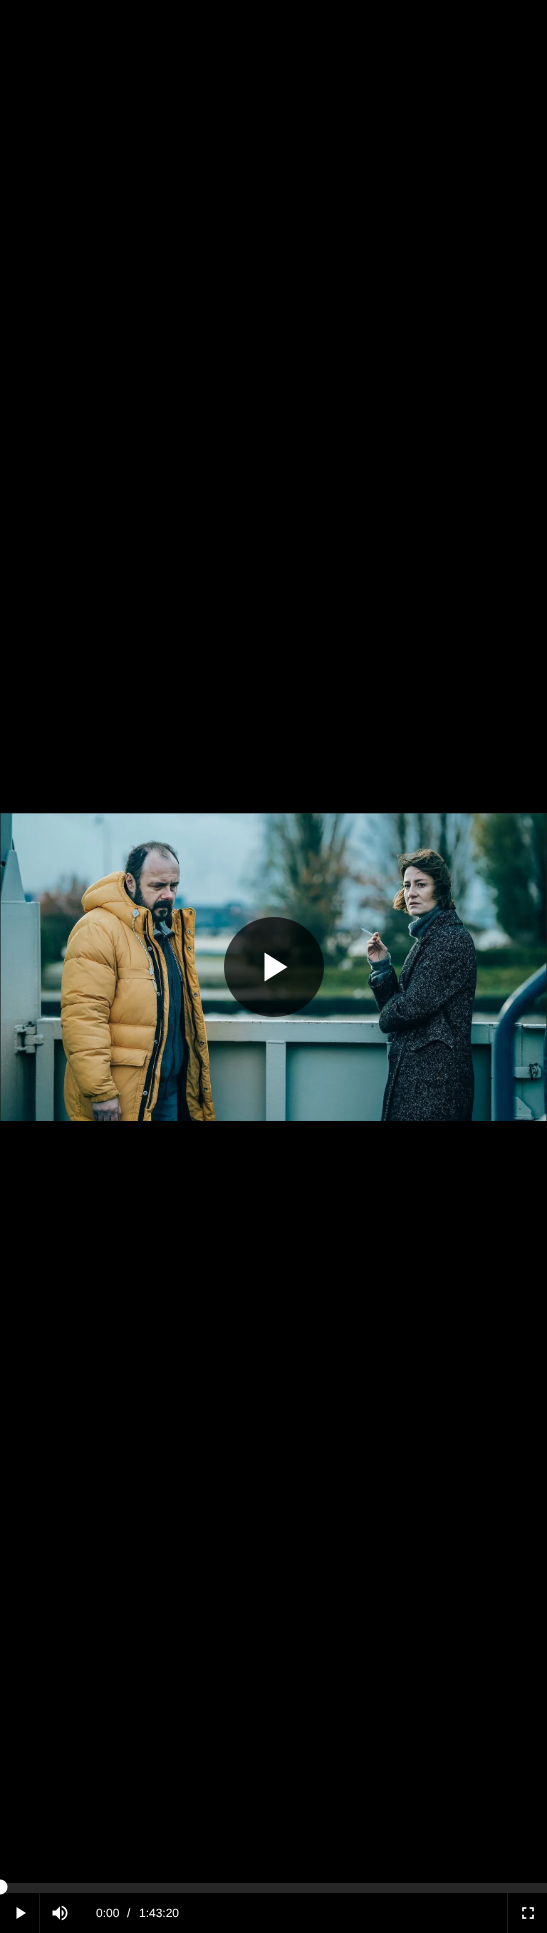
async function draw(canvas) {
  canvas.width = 547;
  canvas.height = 1933;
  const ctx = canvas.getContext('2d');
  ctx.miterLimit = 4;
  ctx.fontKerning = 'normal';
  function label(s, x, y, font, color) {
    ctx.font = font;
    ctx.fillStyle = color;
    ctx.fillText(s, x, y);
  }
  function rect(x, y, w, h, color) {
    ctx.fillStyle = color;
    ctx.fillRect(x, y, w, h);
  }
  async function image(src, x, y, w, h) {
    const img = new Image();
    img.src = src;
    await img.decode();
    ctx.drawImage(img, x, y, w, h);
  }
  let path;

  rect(0, 0, 547, 1933, '#000');
  await image('assets/img1.png', 0, 813, 547, 308);
  ctx.fillStyle = '#000000b3';
  ctx.beginPath();
  ctx.arc(274, 967, 50, 0, 2 * Math.PI);
  ctx.fill();
  ctx.fillStyle = '#fff';
  path = new Path2D('M264.5 952.5V981.5L287.5 967Z');
  ctx.fill(path);
  rect(4, 1883, 543, 10, '#262626');
  await image('assets/img2.png', 0, 1879, 8, 16);
  rect(39, 1893, 1, 40, '#1a1a1a');
  ctx.fillStyle = '#fff';
  path = new Path2D('M16.5 1907V1919L26 1913Z');
  ctx.fill(path);
  await image('assets/img3.png', 52, 1905, 16, 16);
  label('0:00', 96, 1917, '12px Liberation Sans', '#fff');
  label('/', 127, 1917, '12px Liberation Sans', '#fff');
  label('1:43:20', 139, 1917, '12px Liberation Sans', '#fff');
  rect(507, 1893, 1, 40, '#1a1a1a');
  await image('assets/img4.png', 522, 1907, 12, 12);
}

draw(document.querySelector('canvas'));
